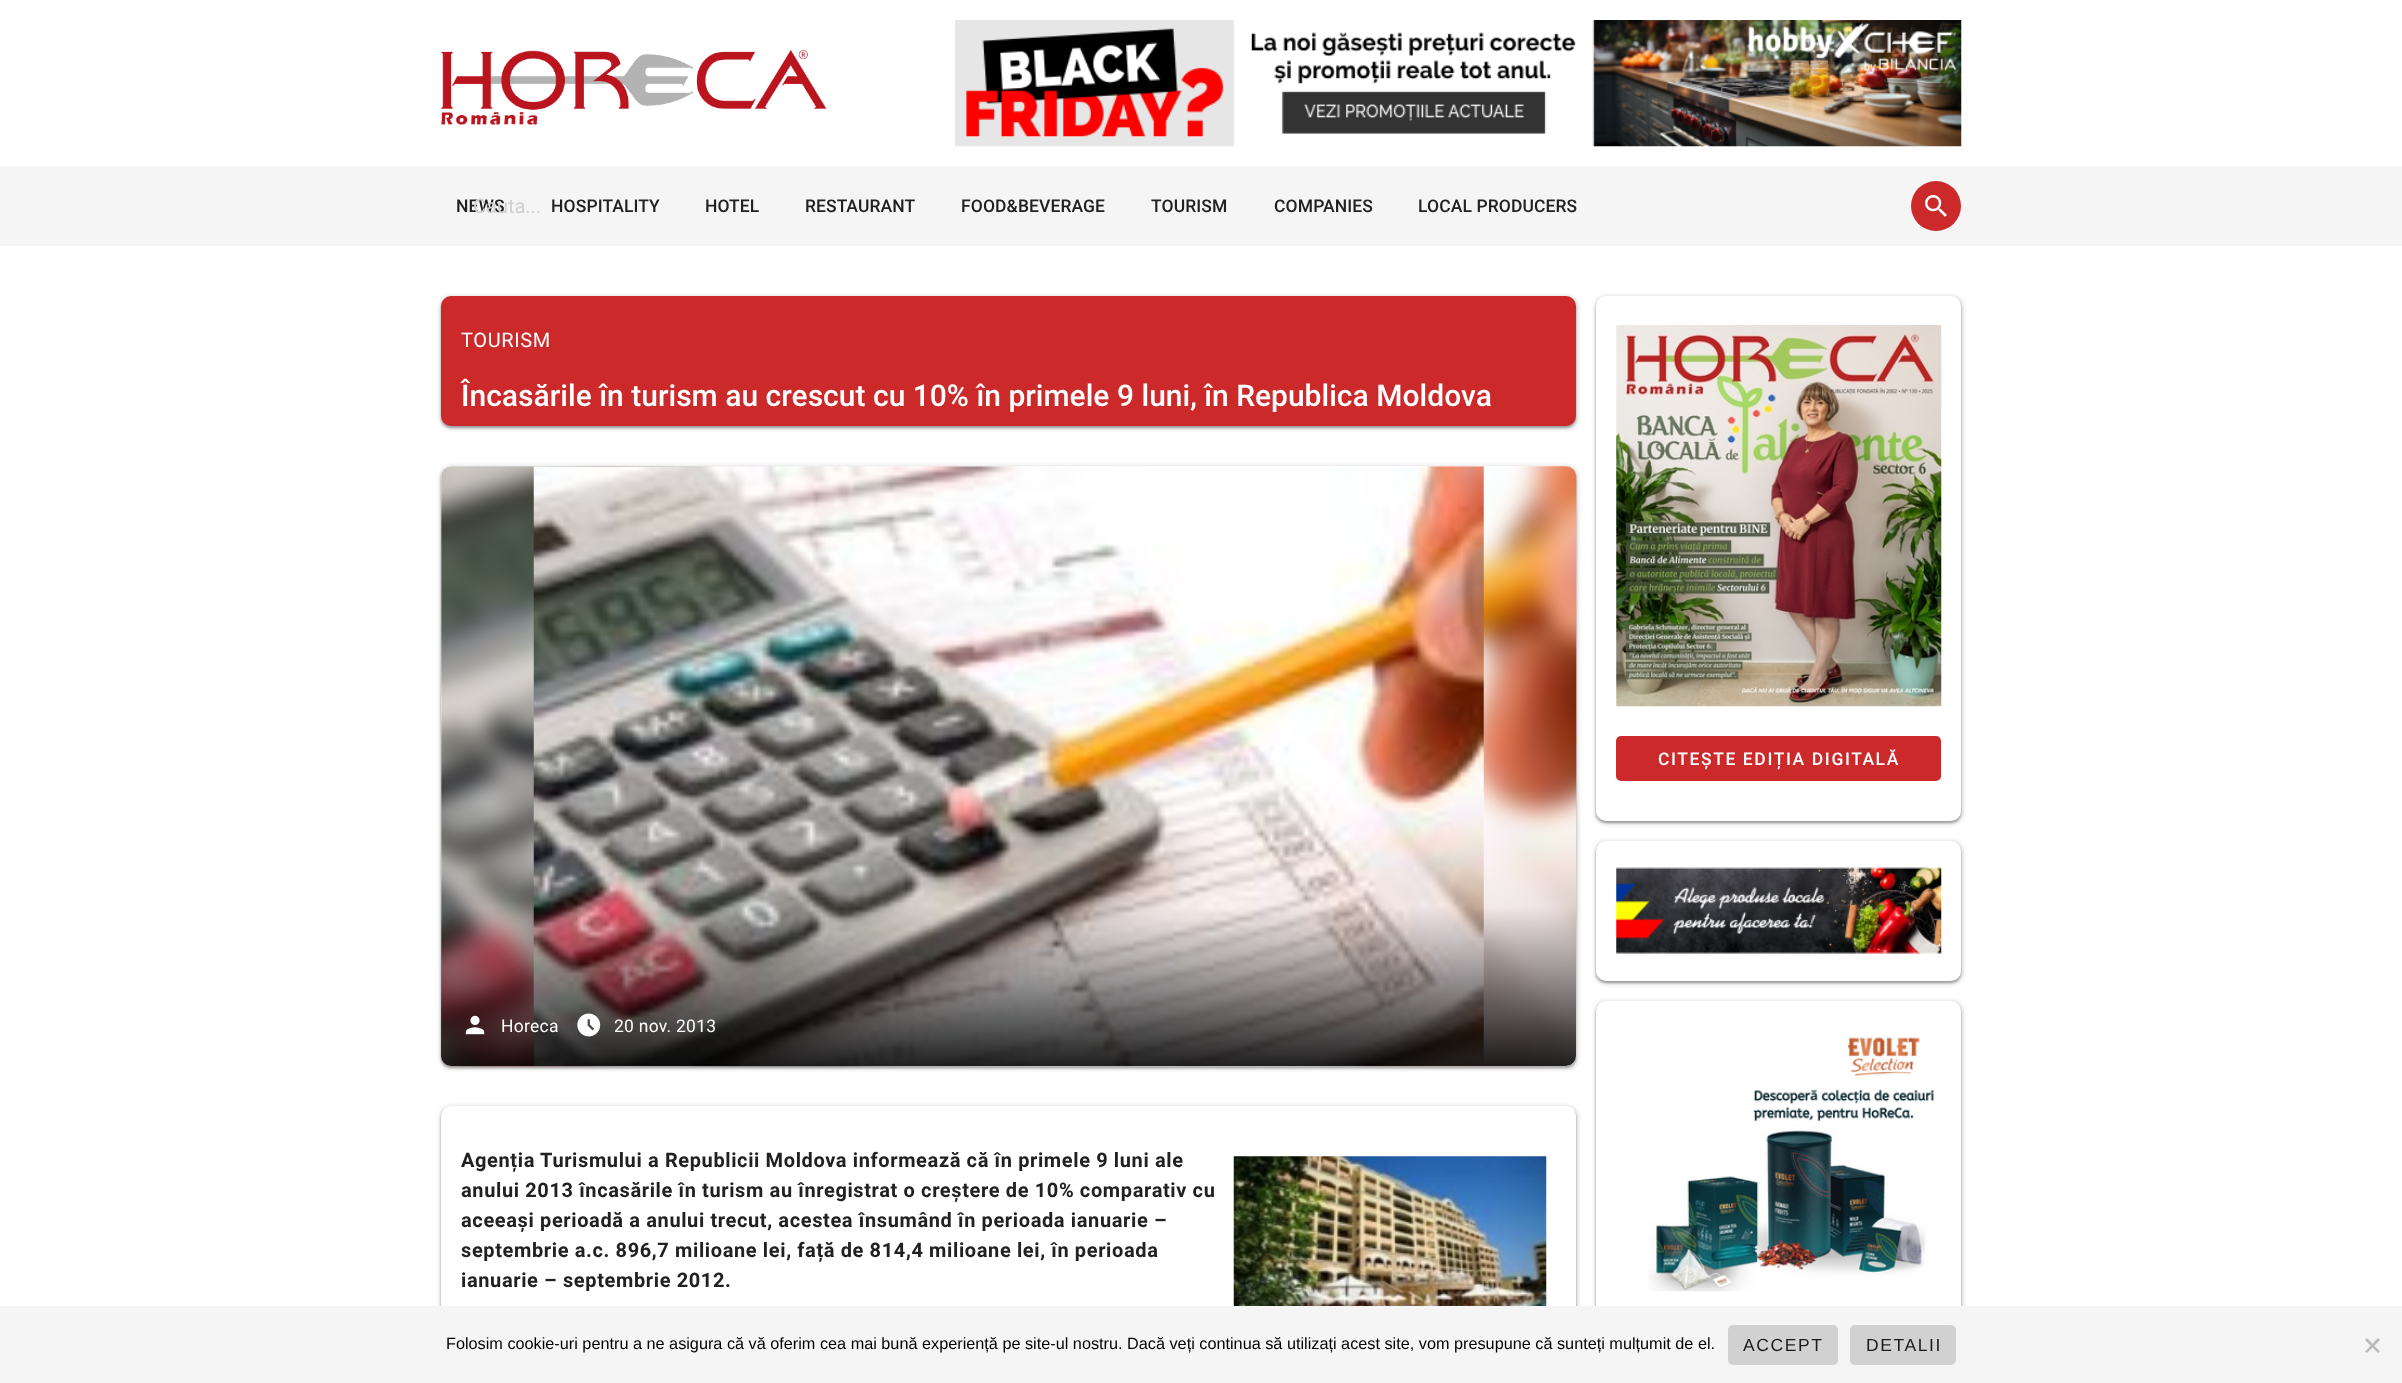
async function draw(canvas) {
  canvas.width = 2402;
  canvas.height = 1383;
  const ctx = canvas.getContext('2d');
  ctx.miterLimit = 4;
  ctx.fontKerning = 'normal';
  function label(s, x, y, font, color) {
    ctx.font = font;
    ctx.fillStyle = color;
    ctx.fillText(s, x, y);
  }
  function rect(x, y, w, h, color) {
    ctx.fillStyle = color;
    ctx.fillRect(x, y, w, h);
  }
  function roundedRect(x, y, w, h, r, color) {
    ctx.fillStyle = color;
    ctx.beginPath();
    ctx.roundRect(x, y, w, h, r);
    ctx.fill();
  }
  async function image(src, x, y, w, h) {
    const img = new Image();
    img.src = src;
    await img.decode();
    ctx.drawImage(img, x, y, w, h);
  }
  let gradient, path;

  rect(0, 0, 2402, 1383, '#fff');
  await image('assets/img1.png', 441, 50, 386, 75);
  await image('assets/img2.png', 955, 20, 1007, 127);
  rect(0, 166, 2402, 80, '#f5f5f5');
  ctx.letterSpacing = '0.1px';
  label('NEWS', 456, 212, '500 17.5px Roboto', '#212121');
  ctx.letterSpacing = '0px';
  label('Cauta...', 473, 213, '20px Roboto', '#d0d0d0');
  ctx.fillStyle = '#cc292b';
  ctx.beginPath();
  ctx.arc(1936, 206, 25, 0, 2 * Math.PI);
  ctx.fill();
  await image('assets/img3.png', 1925, 195, 22, 22);
  ctx.letterSpacing = '0.1px';
  label('HOSPITALITY', 551, 212, '500 17.5px Roboto', '#212121');
  label('HOTEL', 705, 212, '500 17.5px Roboto', '#212121');
  label('RESTAURANT', 805, 212, '500 17.5px Roboto', '#212121');
  label('FOOD&BEVERAGE', 961, 212, '500 17.5px Roboto', '#212121');
  label('TOURISM', 1151, 212, '500 17.5px Roboto', '#212121');
  label('COMPANIES', 1274, 212, '500 17.5px Roboto', '#212121');
  label('LOCAL PRODUCERS', 1418, 212, '500 17.5px Roboto', '#212121');
  ctx.fillStyle = '#00000026';
  ctx.filter = 'blur(2px)';
  ctx.beginPath();
  ctx.roundRect(440, 296, 1138, 133, 11);
  ctx.fill();
  ctx.filter = 'none';
  ctx.fillStyle = '#0000004d';
  ctx.filter = 'blur(1px)';
  ctx.beginPath();
  ctx.roundRect(441, 298, 1135, 130, 10);
  ctx.fill();
  ctx.filter = 'none';
  roundedRect(441, 296, 1135, 130, 10, '#cc292b');
  ctx.letterSpacing = '0.62px';
  label('TOURISM', 461, 347, '20px Roboto', '#fff');
  ctx.letterSpacing = '0px';
  label('Încasările în turism au crescut cu 10% în primele 9 luni, în Republica Moldova', 461, 406, '500 30px Roboto', '#fff');
  ctx.fillStyle = '#00000026';
  ctx.filter = 'blur(2px)';
  ctx.beginPath();
  ctx.roundRect(440, 466, 1138, 603, 11);
  ctx.fill();
  ctx.filter = 'none';
  ctx.fillStyle = '#0000004d';
  ctx.filter = 'blur(1px)';
  ctx.beginPath();
  ctx.roundRect(441, 468, 1135, 600, 10);
  ctx.fill();
  ctx.filter = 'none';
  roundedRect(441, 466, 1135, 600, 10, '#fff');
  await image('assets/img4.png', 441, 466, 1136, 601);
  await image('assets/img5.png', 533, 466, 951, 601);
  gradient = ctx.createLinearGradient(1009, 906, 1009, 1066);
  gradient.addColorStop(0, '#00000000');
  gradient.addColorStop(1, '#000000de');
  ctx.fillStyle = gradient;
  ctx.beginPath();
  ctx.roundRect(441, 906, 1135, 160, [0, 0, 10, 10]);
  ctx.fill();
  await image('assets/img6.png', 465, 1015, 20, 20);
  ctx.letterSpacing = '0.25px';
  label('Horeca', 501, 1032, '17.5px Roboto', '#fff');
  await image('assets/img7.png', 577, 1013, 24, 24);
  label('20 nov. 2013', 614, 1032, '17.5px Roboto', '#fff');
  ctx.fillStyle = '#00000026';
  ctx.filter = 'blur(2px)';
  ctx.beginPath();
  ctx.roundRect(440, 1106, 1138, 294, 11);
  ctx.fill();
  ctx.filter = 'none';
  ctx.fillStyle = '#0000004d';
  ctx.filter = 'blur(1px)';
  ctx.beginPath();
  ctx.roundRect(441, 1108, 1135, 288, 10);
  ctx.fill();
  ctx.filter = 'none';
  roundedRect(441, 1106, 1135, 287, 10, '#fff');
  ctx.letterSpacing = '0.62px';
  label('Agenția Turismului a Republicii Moldova informează că în primele 9 luni ale', 461, 1167, 'bold 20px Roboto', '#212121');
  await image('assets/img8.png', 1233, 1156, 314, 150);
  label('anului 2013 încasările în turism au înregistrat o creștere de 10% comparativ cu', 461, 1197, 'bold 20px Roboto', '#212121');
  label('aceeași perioadă a anului trecut, acestea însumând în perioada ianuarie –', 461, 1227, 'bold 20px Roboto', '#212121');
  label('septembrie a.c. 896,7 milioane lei, față de 814,4 milioane lei, în perioada', 461, 1257, 'bold 20px Roboto', '#212121');
  label('ianuarie – septembrie 2012.', 461, 1287, 'bold 20px Roboto', '#212121');
  ctx.fillStyle = '#00000026';
  ctx.filter = 'blur(2px)';
  ctx.beginPath();
  ctx.roundRect(1595, 296, 368, 528, 11);
  ctx.fill();
  ctx.filter = 'none';
  ctx.fillStyle = '#0000004d';
  ctx.filter = 'blur(1px)';
  ctx.beginPath();
  ctx.roundRect(1596, 298, 365, 525, 10);
  ctx.fill();
  ctx.filter = 'none';
  roundedRect(1596, 296, 365, 525, 10, '#fff');
  await image('assets/img9.png', 1616, 325, 326, 382);
  roundedRect(1616, 736, 325, 45, 5, '#cc292b');
  ctx.letterSpacing = '1.6px';
  label('CITEȘTE EDIȚIA DIGITALĂ', 1658, 765, '500 17.5px Roboto', '#fff');
  ctx.fillStyle = '#00000026';
  ctx.filter = 'blur(2px)';
  ctx.beginPath();
  ctx.roundRect(1595, 841, 368, 143, 11);
  ctx.fill();
  ctx.filter = 'none';
  ctx.fillStyle = '#0000004d';
  ctx.filter = 'blur(1px)';
  ctx.beginPath();
  ctx.roundRect(1596, 843, 365, 140, 10);
  ctx.fill();
  ctx.filter = 'none';
  roundedRect(1596, 841, 365, 140, 10, '#fff');
  await image('assets/img10.png', 1616, 867, 326, 87);
  ctx.fillStyle = '#00000026';
  ctx.filter = 'blur(2px)';
  ctx.beginPath();
  ctx.roundRect(1595, 1001, 368, 322, 11);
  ctx.fill();
  ctx.filter = 'none';
  ctx.fillStyle = '#0000004d';
  ctx.filter = 'blur(1px)';
  ctx.beginPath();
  ctx.roundRect(1596, 1003, 365, 318, 10);
  ctx.fill();
  ctx.filter = 'none';
  roundedRect(1596, 1001, 365, 319, 10, '#fff');
  await image('assets/img11.png', 1648, 1037, 286, 255);
  rect(0, 1306, 2402, 77, '#f5f5f5');
  ctx.letterSpacing = '0px';
  label('Folosim cookie-uri pentru a ne asigura că vă oferim cea mai bună experiență pe site-ul nostru. Dacă veți continua să utilizați acest site, vom presupune că sunteți mulțumit de el.', 446, 1349, '16.25px Liberation Sans', '#000');
  roundedRect(1728, 1325, 110, 40, 5, '#d1d1d1');
  ctx.letterSpacing = '1.6px';
  label('ACCEPT', 1743, 1351, '17.5px Liberation Sans', '#1b1b1b');
  roundedRect(1850, 1325, 106, 40, 5, '#d1d1d1');
  label('DETALII', 1866, 1351, '17.5px Liberation Sans', '#1b1b1b');
  ctx.fillStyle = '#bbb';
  path = new Path2D('M2378 1338L2380 1340L2367 1353L2365 1351.5Z');
  ctx.fill(path);
  path = new Path2D('M2365 1340L2367 1338L2380 1351.5L2378 1353Z');
  ctx.fill(path);
}

draw(document.querySelector('canvas'));
